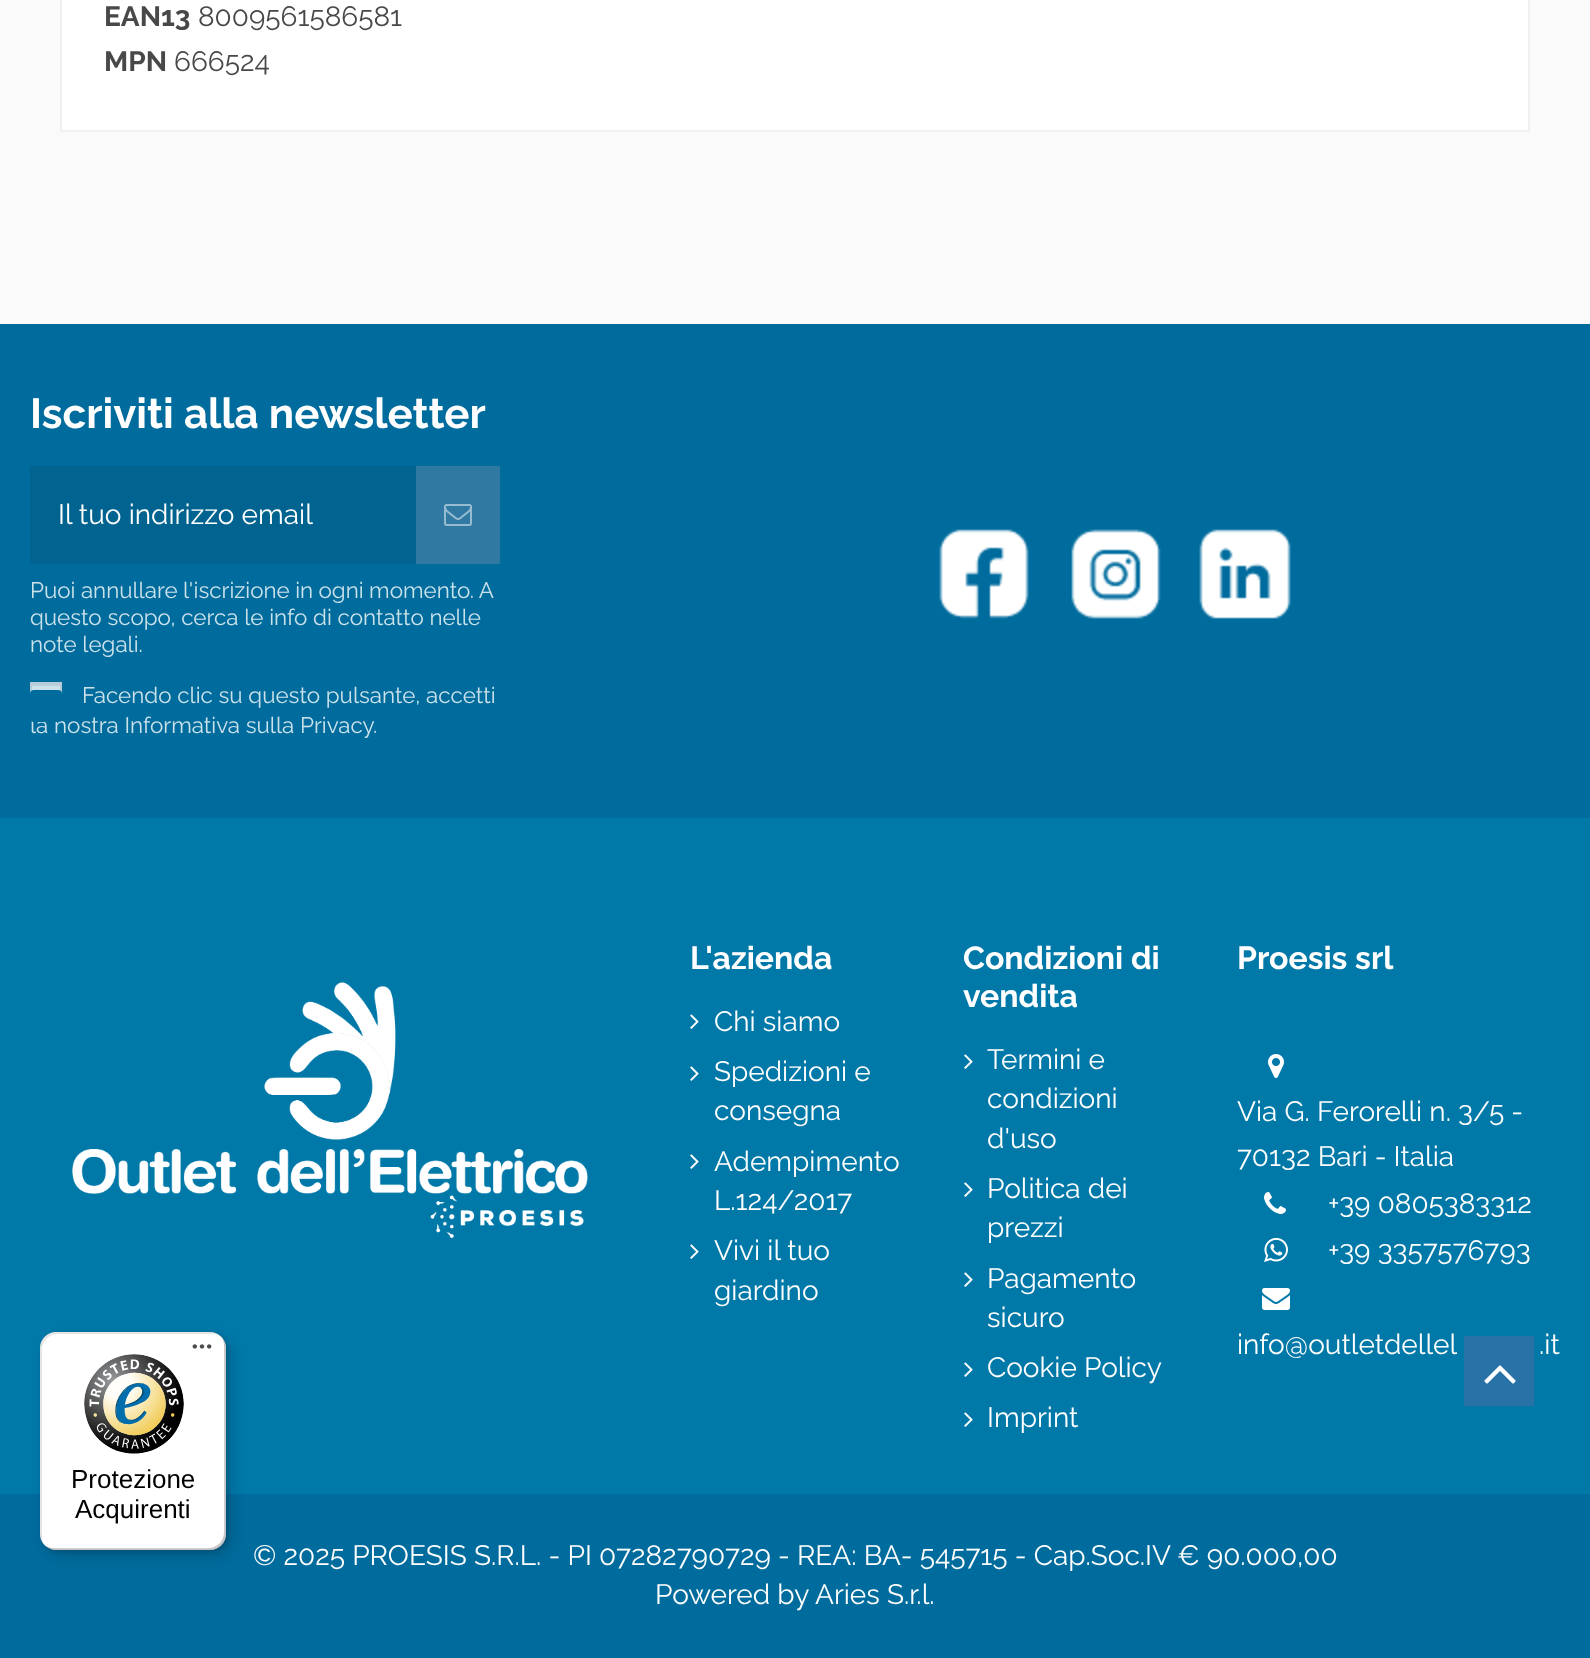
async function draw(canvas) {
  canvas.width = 1590;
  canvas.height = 1658;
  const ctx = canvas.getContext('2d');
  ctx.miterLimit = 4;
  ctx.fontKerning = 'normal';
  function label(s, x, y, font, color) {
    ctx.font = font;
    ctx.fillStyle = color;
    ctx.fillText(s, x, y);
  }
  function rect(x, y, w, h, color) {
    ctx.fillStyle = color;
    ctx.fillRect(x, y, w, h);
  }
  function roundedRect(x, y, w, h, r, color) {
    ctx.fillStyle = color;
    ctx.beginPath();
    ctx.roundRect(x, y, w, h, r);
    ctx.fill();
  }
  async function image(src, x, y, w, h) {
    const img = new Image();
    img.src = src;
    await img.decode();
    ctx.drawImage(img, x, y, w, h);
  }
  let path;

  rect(0, 0, 1590, 1658, '#fafafa');
  rect(62, 0, 1466, 130, '#fff');
  rect(1528, 0, 2, 132, '#f0f0f0');
  rect(60, 130, 1470, 2, '#f0f0f0');
  rect(60, 0, 2, 132, '#f0f0f0');
  label('EAN13', 104, 26, 'bold 28px Raleway', '#484848');
  label('8009561586581', 198, 26, '28px Raleway', '#484848');
  label('MPN', 104, 71, 'bold 28px Raleway', '#484848');
  label('666524', 174, 71, '28px Raleway', '#484848');
  rect(0, 324, 1590, 494, '#006c9d');
  label('Iscriviti alla newsletter', 30, 428, 'bold 42px Raleway', '#fff');
  rect(30, 466, 386, 98, '#006390');
  label('Il tuo indirizzo email', 58, 524, '28px Raleway', '#fff');
  rect(416, 466, 84, 98, '#2f79a2');
  await image('assets/img1.png', 444, 504, 28, 22);
  ctx.wordSpacing = '-0.25px';
  label('Puoi annullare l\'iscrizione in ogni momento. A', 30, 598, '22.4px Raleway', '#cce2eb');
  ctx.wordSpacing = '0px';
  label('questo scopo, cerca le info di contatto nelle', 30, 625, '22.4px Raleway', '#cce2eb');
  label('note legali.', 30, 652, '22.4px Raleway', '#cce2eb');
  rect(32, 686, 28, 5, '#cce2eb');
  rect(32, 684, 28, 2, '#bad0d9');
  ctx.strokeStyle = '#b6cbd5';
  ctx.lineWidth = 2;
  ctx.strokeRect(31, 683, 30, 30);
  label('Facendo clic su questo pulsante, accetti', 82, 703, '22.4px Raleway', '#cce2eb');
  label('la nostra Informativa sulla Privacy.', 30, 733, '22.4px Raleway', '#cce2eb');
  ctx.fillStyle = '#006c9d';
  ctx.beginPath();
  ctx.roundRect(31, 691, 30, 30, 3);
  ctx.fill();
  ctx.strokeStyle = '#006c9d';
  ctx.stroke();
  await image('assets/img2.png', 939, 529, 90, 90);
  await image('assets/img3.png', 1071, 529, 90, 90);
  await image('assets/img4.png', 1199, 529, 92, 90);
  rect(0, 818, 1590, 676, '#0079a9');
  await image('assets/img5.png', 72, 982, 516, 257);
  label('L\'azienda', 690, 969, 'bold 32px Raleway', '#fff');
  await image('assets/img6.png', 690, 1014, 9, 15);
  label('Chi siamo', 714, 1031, '28px Raleway', '#fff');
  await image('assets/img6.png', 690, 1066, 9, 15);
  label('Spedizioni e', 714, 1081, '28px Raleway', '#fff');
  label('consegna', 714, 1120, '28px Raleway', '#fff');
  await image('assets/img6.png', 690, 1154, 9, 15);
  label('Adempimento', 714, 1171, '28px Raleway', '#fff');
  label('L.124/2017', 714, 1210, '28px Raleway', '#fff');
  await image('assets/img6.png', 690, 1244, 9, 15);
  label('Vivi il tuo', 714, 1260, '28px Raleway', '#fff');
  label('giardino', 714, 1300, '28px Raleway', '#fff');
  label('Condizioni di', 963, 969, 'bold 32px Raleway', '#fff');
  label('vendita', 963, 1007, 'bold 32px Raleway', '#fff');
  await image('assets/img6.png', 964, 1054, 9, 15);
  label('Termini e', 987, 1069, '28px Raleway', '#fff');
  label('condizioni', 987, 1108, '28px Raleway', '#fff');
  label('d\'uso', 987, 1148, '28px Raleway', '#fff');
  await image('assets/img6.png', 964, 1182, 9, 15);
  label('Politica dei', 987, 1198, '28px Raleway', '#fff');
  label('prezzi', 987, 1237, '28px Raleway', '#fff');
  await image('assets/img6.png', 964, 1272, 9, 15);
  label('Pagamento', 987, 1288, '28px Raleway', '#fff');
  label('sicuro', 987, 1327, '28px Raleway', '#fff');
  await image('assets/img6.png', 964, 1362, 9, 15);
  label('Cookie Policy', 987, 1377, '28px Raleway', '#fff');
  await image('assets/img6.png', 964, 1412, 9, 15);
  label('Imprint', 987, 1427, '28px Raleway', '#fff');
  label('Proesis srl', 1237, 969, 'bold 32px Raleway', '#fff');
  await image('assets/img7.png', 1268, 1054, 16, 24);
  label('Via G. Ferorelli n. 3/5 -', 1237, 1121, '28px Raleway', '#fff');
  label('70132 Bari - Italia', 1237, 1166, '28px Raleway', '#fff');
  await image('assets/img8.png', 1264, 1192, 22, 22);
  label('+39 0805383312', 1328, 1213, '28px Raleway', '#fff');
  await image('assets/img9.png', 1264, 1237, 24, 25);
  label('+39 3357576793', 1328, 1260, '28px Raleway', '#fff');
  await image('assets/img10.png', 1262, 1288, 28, 22);
  label('info@outletdellel', 1237, 1354, '28px Raleway', '#fff');
  label('.it', 1539, 1354, '28px Raleway', '#fff');
  rect(0, 1494, 1590, 164, '#006c9d');
  label('© 2025 PROESIS S.R.L. - PI 07282790729 - REA: BA- 545715 - Cap.Soc.IV € 90.000,00', 253, 1565, '28px Raleway', '#fff');
  label('Powered by', 655, 1604, '28px Raleway', '#fff');
  label('Aries S.r.l.', 815, 1604, '28px Raleway', '#fff');
  rect(1464, 1336, 70, 70, '#2972a7');
  await image('assets/img11.png', 1484, 1365, 32, 19);
  ctx.fillStyle = '#00000026';
  ctx.filter = 'blur(8px)';
  ctx.beginPath();
  ctx.roundRect(46, 1338, 186, 218, 16);
  ctx.fill();
  ctx.filter = 'none';
  ctx.filter = 'blur(2px)';
  ctx.beginPath();
  ctx.roundRect(42, 1334, 186, 218, 16);
  ctx.fill();
  ctx.filter = 'none';
  roundedRect(40, 1332, 186, 218, 16, '#fff');
  ctx.fillStyle = '#0000001a';
  path = new Path2D('M58 1334H212C216 1334 219 1335 222 1337C219 1334 215 1332 210 1332H56C47 1332 40 1339 40 1348V1534C40 1539 42 1543 45 1546C43 1543 42 1540 42 1536V1350C42 1341 49 1334 58 1334Z');
  ctx.fill(path);
  ctx.fillStyle = '#00000033';
  path = new Path2D('M44 1545C47 1548 51 1550 56 1550H210C219 1550 226 1543 226 1534V1348C226 1343 224 1339 221 1336C223 1339 224 1342 224 1346V1532C224 1541 217 1548 208 1548H54C50 1548 47 1547 44 1545Z');
  ctx.fill(path);
  ctx.fillStyle = '#32323233';
  path = new Path2D('M45 1545C48 1548 52 1550 56 1550H210C219 1550 226 1543 226 1534V1348C226 1344 224 1340 221 1337C224 1340 225 1343 225 1347V1533C225 1542 218 1549 209 1549H55C51 1549 48 1548 45 1545Z');
  ctx.fill(path);
  ctx.fillStyle = '#ffffff4d';
  path = new Path2D('M45 1545C48 1548 52 1550 56 1550H210C219 1550 226 1543 226 1534V1348C226 1344 224 1340 221 1337C224 1340 225 1343 225 1347V1533C225 1542 218 1549 209 1549H55C51 1549 48 1548 45 1545Z');
  ctx.fill(path);
  await image('assets/img12.png', 192, 1344, 20, 5);
  await image('assets/img13.png', 84, 1354, 100, 100);
  label('Protezione', 71, 1488, '26px Liberation Sans', '#000');
  label('Acquirenti', 75, 1518, '26px Liberation Sans', '#000');
}

draw(document.querySelector('canvas'));
